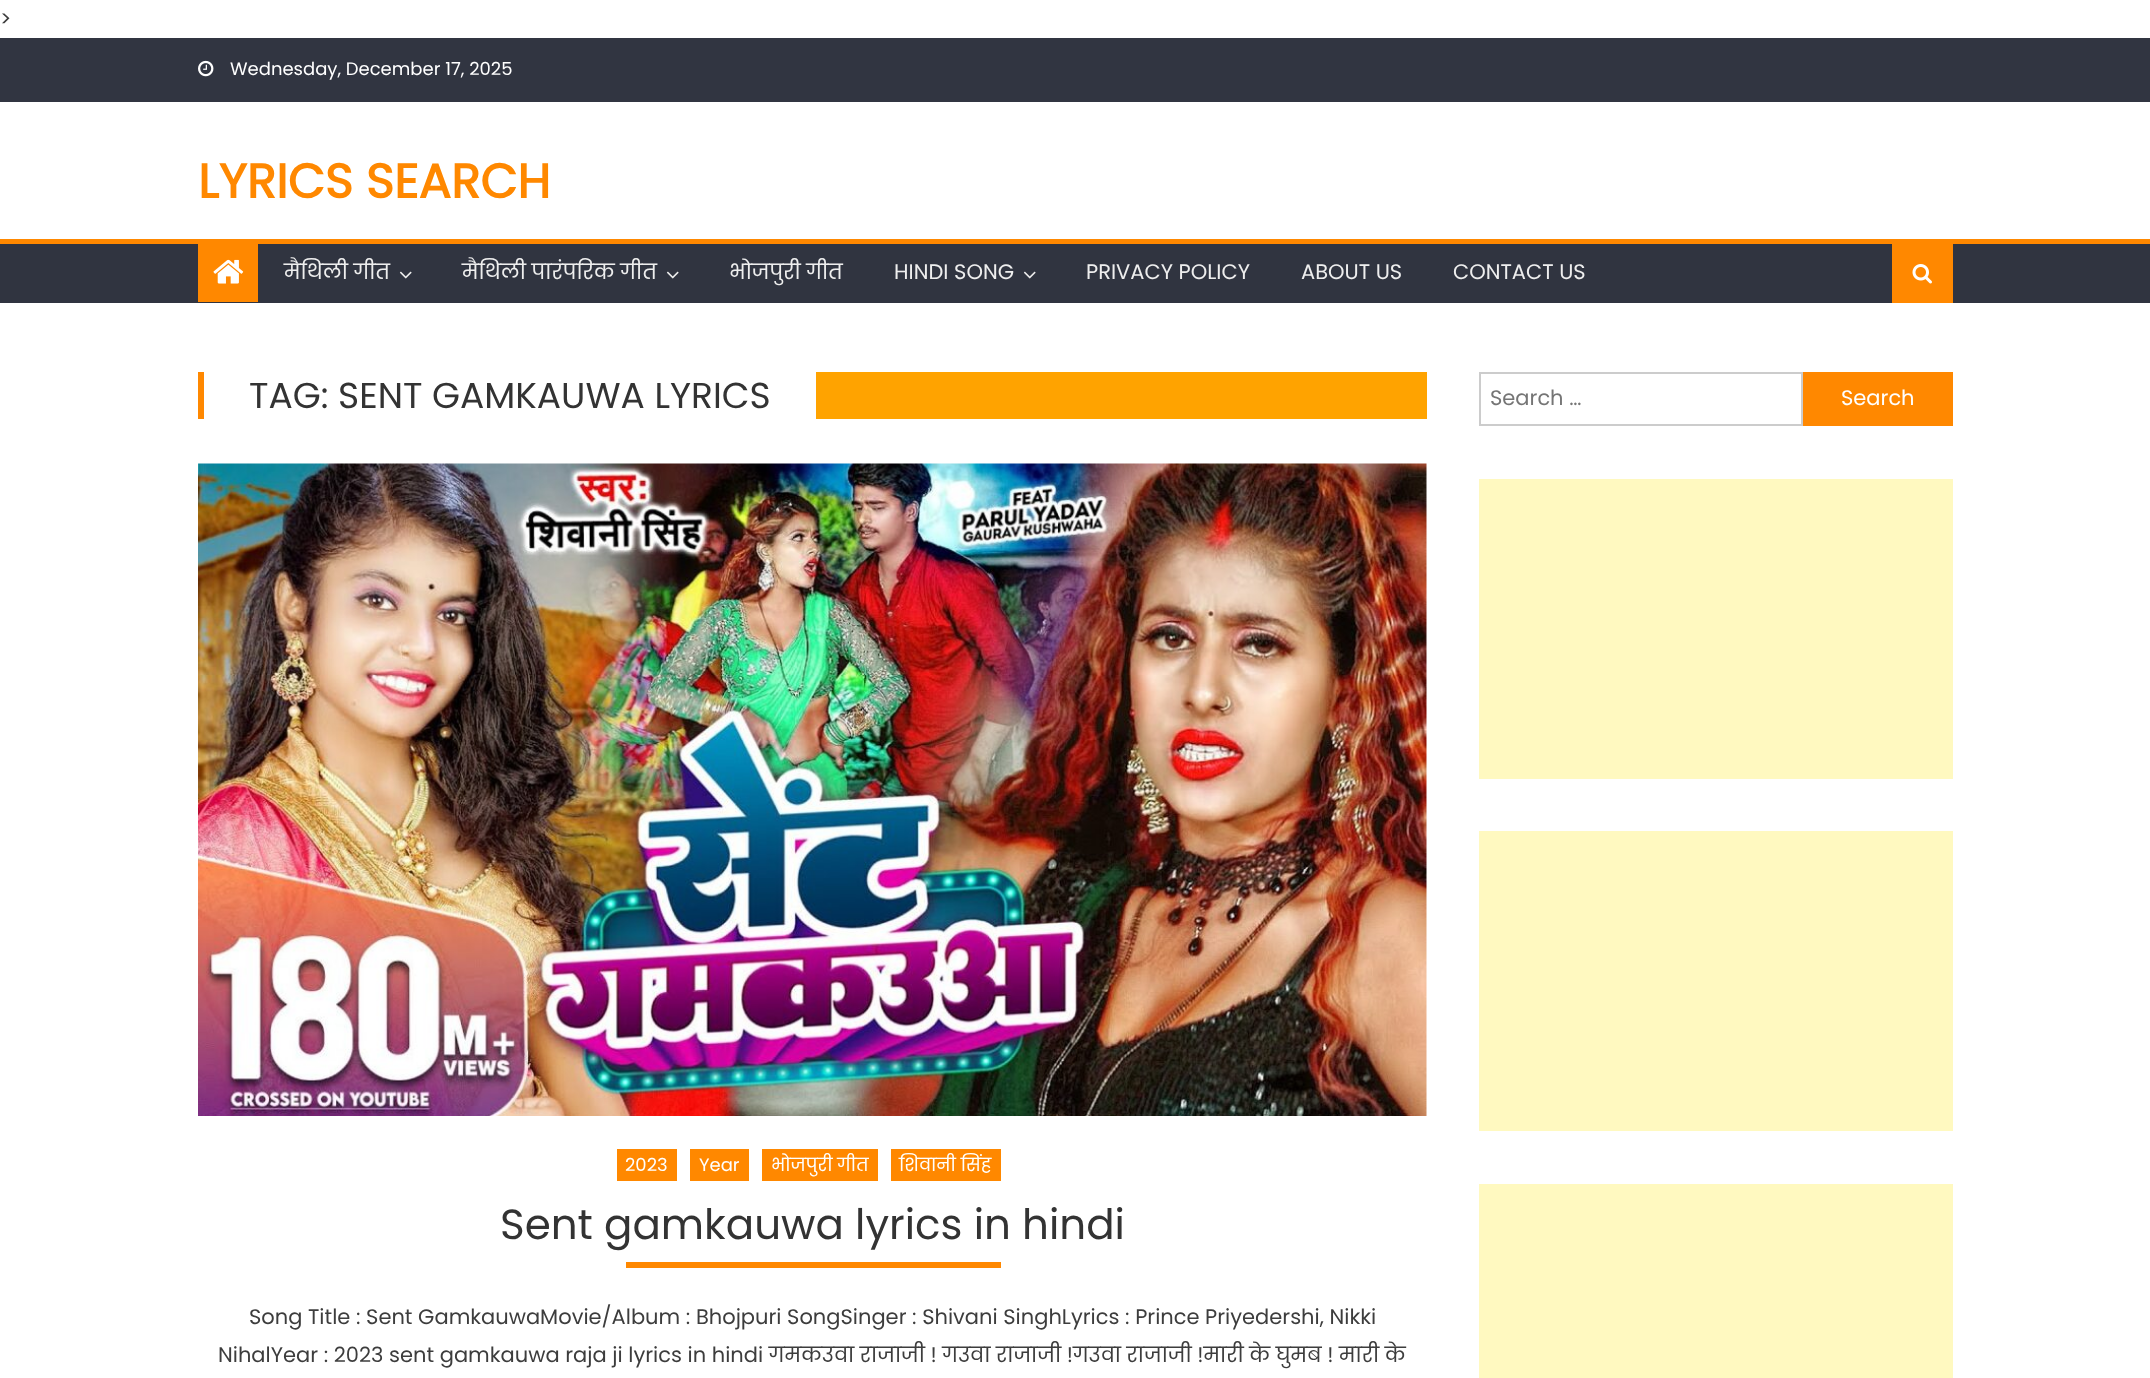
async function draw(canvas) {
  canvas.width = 2150;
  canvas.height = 1378;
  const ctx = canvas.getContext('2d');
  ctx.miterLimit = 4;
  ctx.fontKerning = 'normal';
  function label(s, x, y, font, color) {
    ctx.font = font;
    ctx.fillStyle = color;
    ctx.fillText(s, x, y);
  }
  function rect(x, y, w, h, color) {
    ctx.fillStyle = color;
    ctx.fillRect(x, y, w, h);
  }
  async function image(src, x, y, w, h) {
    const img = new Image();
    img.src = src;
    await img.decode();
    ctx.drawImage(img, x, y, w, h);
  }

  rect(0, 0, 2150, 1378, '#fff');
  label('>', 0, 26, '21px Poppins', '#3d3d3d');
  rect(0, 38, 2150, 64, '#313541');
  await image('assets/img1.png', 198, 60, 16, 17);
  label('Wednesday, December 17, 2025', 230, 75, '18px Poppins', '#fff');
  label('LYRICS SEARCH', 198, 198, 'bold 48px Poppins', '#f80');
  rect(0, 244, 2150, 59, '#303440');
  rect(0, 239, 2150, 5, '#f80');
  rect(198, 244, 60, 58, '#f80');
  await image('assets/img2.png', 213, 259, 31, 25);
  label('मैथिली गीत', 284, 279, '21px Poppins', '#eee');
  await image('assets/img3.png', 399, 271, 13, 8);
  label('मैथिली पारंपरिक गीत', 462, 279, '21px Poppins', '#eee');
  await image('assets/img3.png', 666, 271, 13, 8);
  label('भोजपुरी गीत', 729, 279, '21px Poppins', '#eee');
  label('HINDI SONG', 894, 279, '21px Poppins', '#eee');
  await image('assets/img3.png', 1023, 271, 13, 8);
  label('PRIVACY POLICY', 1086, 279, '21px Poppins', '#eee');
  label('ABOUT US', 1301, 279, '21px Poppins', '#eee');
  label('CONTACT US', 1453, 279, '21px Poppins', '#eee');
  rect(1892, 244, 61, 59, '#f80');
  await image('assets/img4.png', 1912, 264, 20, 20);
  rect(816, 372, 611, 47, '#ffa300');
  rect(198, 372, 6, 47, '#f80');
  label('TAG: SENT GAMKAUWA LYRICS', 249, 408, '36px Poppins', '#333');
  await image('assets/img5.png', 198, 463, 1229, 653);
  rect(617, 1149, 60, 32, '#f80');
  label('2023', 625, 1171, '18px Poppins', '#fff');
  rect(690, 1149, 59, 32, '#f80');
  label('Year', 699, 1171, '18px Poppins', '#fff');
  rect(762, 1149, 116, 32, '#f80');
  label('भोजपुरी गीत', 771, 1171, '18px Poppins', '#fff');
  rect(891, 1149, 110, 32, '#f80');
  label('शिवानी सिंह', 899, 1171, '18px Poppins', '#fff');
  label('Sent gamkauwa lyrics in hindi', 500, 1239, '42px Poppins', '#333');
  rect(626, 1262, 375, 6, '#f80');
  label('Song Title : Sent GamkauwaMovie/Album : Bhojpuri SongSinger : Shivani SinghLyrics : Prince Priyedershi, Nikki', 249, 1324, '21px Poppins', '#3d3d3d');
  label('NihalYear : 2023 sent gamkauwa raja ji lyrics in hindi गमकउवा राजाजी ! गउवा राजाजी !गउवा राजाजी !मारी के घुमब ! मारी के', 218, 1362, '21px Poppins', '#3d3d3d');
  ctx.strokeStyle = '#ccc';
  ctx.lineWidth = 2;
  ctx.strokeRect(1480, 373, 322, 52);
  label('Search …', 1490, 405, '21px Poppins', '#757575');
  rect(1803, 372, 150, 54, '#f80');
  label('Search', 1841, 405, '21px Poppins', '#fff');
  rect(1479, 479, 474, 300, '#fff9c0');
  rect(1479, 831, 474, 300, '#fff9c0');
  rect(1479, 1184, 474, 194, '#fff9c0');
}

draw(document.querySelector('canvas'));
